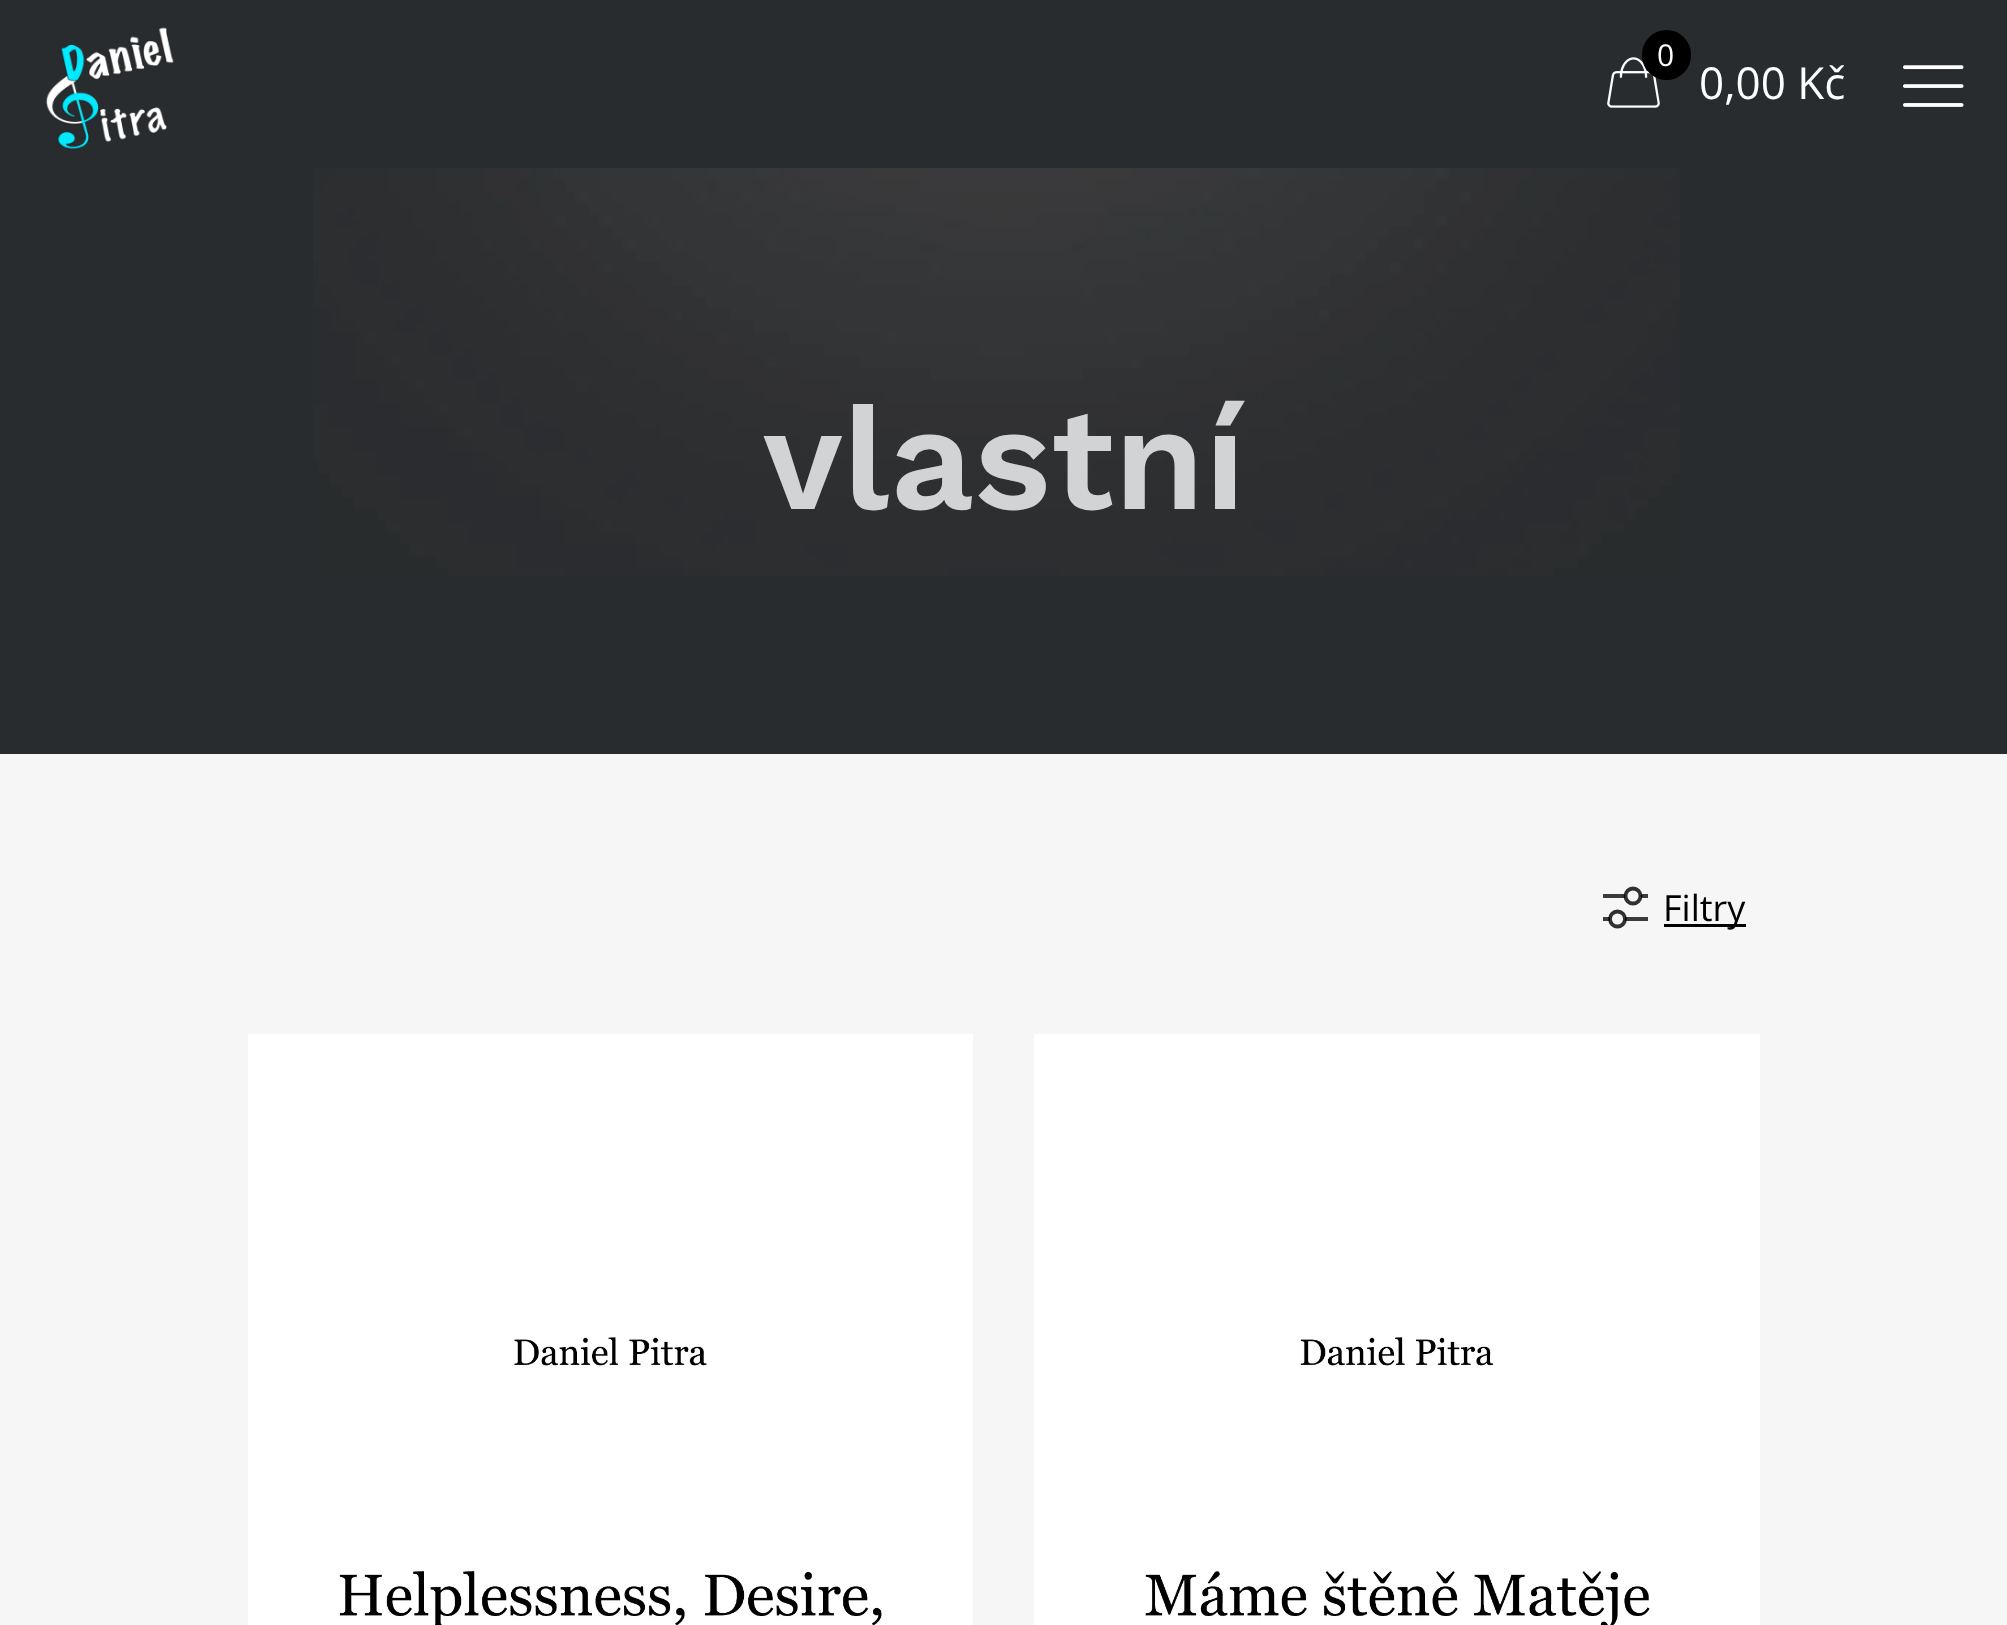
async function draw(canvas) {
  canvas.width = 2007;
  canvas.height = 1625;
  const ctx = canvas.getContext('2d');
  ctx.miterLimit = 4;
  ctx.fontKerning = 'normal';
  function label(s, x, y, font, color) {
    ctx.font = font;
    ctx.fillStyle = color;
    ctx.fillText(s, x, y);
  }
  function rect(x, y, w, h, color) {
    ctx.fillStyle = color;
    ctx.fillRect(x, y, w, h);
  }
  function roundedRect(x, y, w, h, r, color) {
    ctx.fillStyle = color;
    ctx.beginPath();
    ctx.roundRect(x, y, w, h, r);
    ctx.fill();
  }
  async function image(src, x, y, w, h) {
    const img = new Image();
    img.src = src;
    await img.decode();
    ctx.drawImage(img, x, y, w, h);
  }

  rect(0, 0, 2007, 1625, '#f6f6f6');
  rect(0, 0, 2007, 754, '#292c2e');
  await image('assets/img1.png', 46, 27, 128, 123);
  await image('assets/img2.png', 1903, 65, 61, 42);
  await image('assets/img3.png', 1607, 57, 53, 51);
  roundedRect(1642, 30, 49, 50, 24.5, '#000');
  label('0', 1657, 66, '30px Open Sans', '#fff');
  label('0,00 Kč', 1699, 99, '44px Open Sans', '#fff');
  await image('assets/img4.png', 313, 168, 1367, 408);
  label('vlastní', 763, 509, '600 146px Work Sans', '#d2d3d4');
  rect(1625, 917, 23, 4, '#3b3b3b');
  rect(1603, 917, 7, 4, '#3b3b3b');
  rect(1641, 894, 7, 4, '#3b3b3b');
  rect(1603, 894, 22, 4, '#3b3b3b');
  ctx.beginPath();
  ctx.arc(1617.5, 919, 7.5, 0, 2 * Math.PI);
  ctx.strokeStyle = '#000000cc';
  ctx.lineWidth = 3.8;
  ctx.stroke();
  ctx.beginPath();
  ctx.arc(1633, 896, 7.5, 0, 2 * Math.PI);
  ctx.stroke();
  rect(1664, 924, 82, 3, '#000');
  label('Filtry', 1663, 921, '36px Open Sans', '#000');
  await image('assets/img5.png', 248, 1034, 725, 591);
  await image('assets/img6.png', 1034, 1034, 726, 591);
}

draw(document.querySelector('canvas'));
